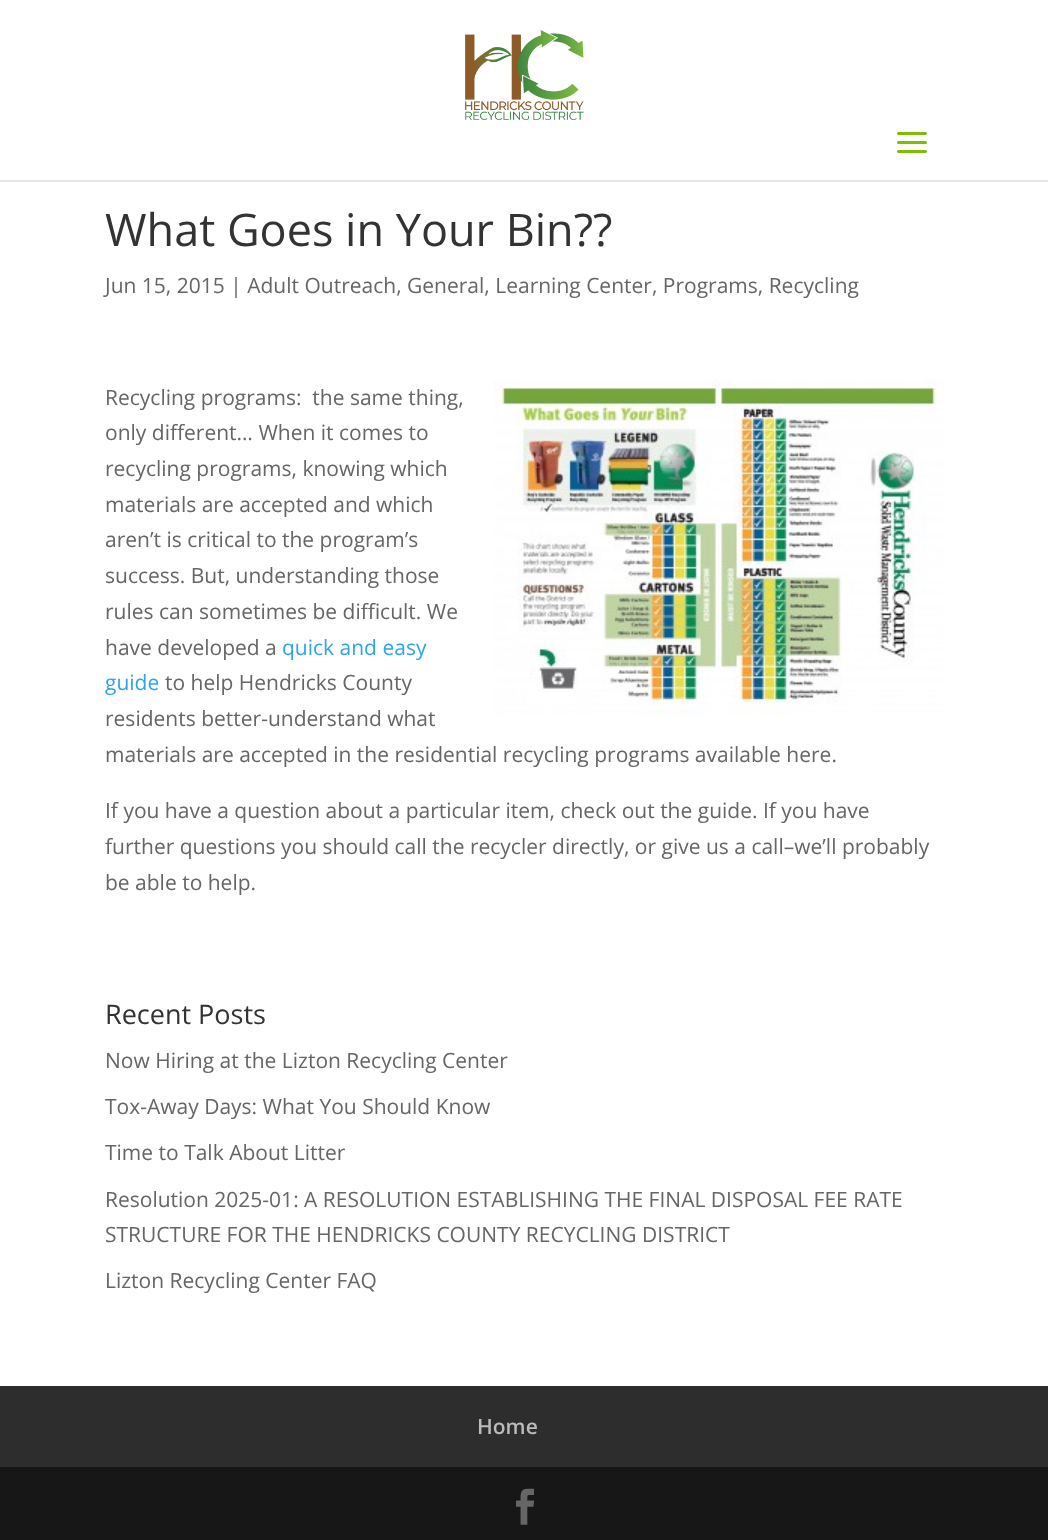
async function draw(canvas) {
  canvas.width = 1048;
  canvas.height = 1540;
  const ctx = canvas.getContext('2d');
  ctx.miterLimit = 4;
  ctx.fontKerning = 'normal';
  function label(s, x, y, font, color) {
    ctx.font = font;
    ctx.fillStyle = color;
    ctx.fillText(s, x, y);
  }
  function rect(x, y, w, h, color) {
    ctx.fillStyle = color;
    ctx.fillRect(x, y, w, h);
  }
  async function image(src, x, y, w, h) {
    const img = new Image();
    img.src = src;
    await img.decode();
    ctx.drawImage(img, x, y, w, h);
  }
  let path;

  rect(0, 0, 1048, 1540, '#fff');
  ctx.fillStyle = '#e6e6e6';
  path = new Path2D('M0 180V182H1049V2H1048V180Z');
  ctx.fill(path);
  await image('assets/img1.png', 465, 30, 119, 90);
  await image('assets/img2.png', 897, 132, 30, 21);
  label('What Goes in Your Bin??', 105, 246, '45px Open Sans', '#333');
  label('Jun 15, 2015 | Adult Outreach, General, Learning Center, Programs, Recycling', 105, 293, '21px Open Sans', '#666');
  label('Recycling programs:  the same thing,', 105, 405, '21px Open Sans', '#666');
  await image('assets/img3.png', 493, 379, 451, 338);
  label('only different… When it comes to', 105, 440, '21px Open Sans', '#666');
  label('recycling programs, knowing which', 105, 476, '21px Open Sans', '#666');
  label('materials are accepted and which', 105, 512, '21px Open Sans', '#666');
  label('aren’t is critical to the program’s', 105, 547, '21px Open Sans', '#666');
  label('success. But, understanding those', 105, 583, '21px Open Sans', '#666');
  label('rules can sometimes be difficult. We', 105, 619, '21px Open Sans', '#666');
  label('have developed a', 105, 655, '21px Open Sans', '#666');
  label('quick and easy', 282, 655, '21px Open Sans', '#2ea3f2');
  label('guide', 105, 690, '21px Open Sans', '#2ea3f2');
  label('to help Hendricks County', 165, 690, '21px Open Sans', '#666');
  label('residents better-understand what', 105, 726, '21px Open Sans', '#666');
  label('materials are accepted in the residential recycling programs available here.', 105, 762, '21px Open Sans', '#666');
  label('If you have a question about a particular item, check out the guide. If you have', 105, 818, '21px Open Sans', '#666');
  label('further questions you should call the recycler directly, or give us a call–we’ll probably', 105, 854, '21px Open Sans', '#666');
  label('be able to help.', 105, 890, '21px Open Sans', '#666');
  label('Recent Posts', 105, 1024, '27px Open Sans', '#333');
  label('Now Hiring at the Lizton Recycling Center', 105, 1068, '21px Open Sans', '#666');
  label('Tox-Away Days: What You Should Know', 105, 1114, '21px Open Sans', '#666');
  label('Time to Talk About Litter', 105, 1160, '21px Open Sans', '#666');
  label('Resolution 2025-01: A RESOLUTION ESTABLISHING THE FINAL DISPOSAL FEE RATE', 105, 1207, '21px Open Sans', '#666');
  label('STRUCTURE FOR THE HENDRICKS COUNTY RECYCLING DISTRICT', 105, 1242, '21px Open Sans', '#666');
  label('Lizton Recycling Center FAQ', 105, 1288, '21px Open Sans', '#666');
  rect(0, 1386, 1048, 81, '#2d2d2d');
  label('Home', 477, 1434, '600 21px Open Sans', '#bbb');
  rect(0, 1467, 1048, 73, '#171717');
  await image('assets/img4.png', 516, 1488, 18, 37);
}

draw(document.querySelector('canvas'));
